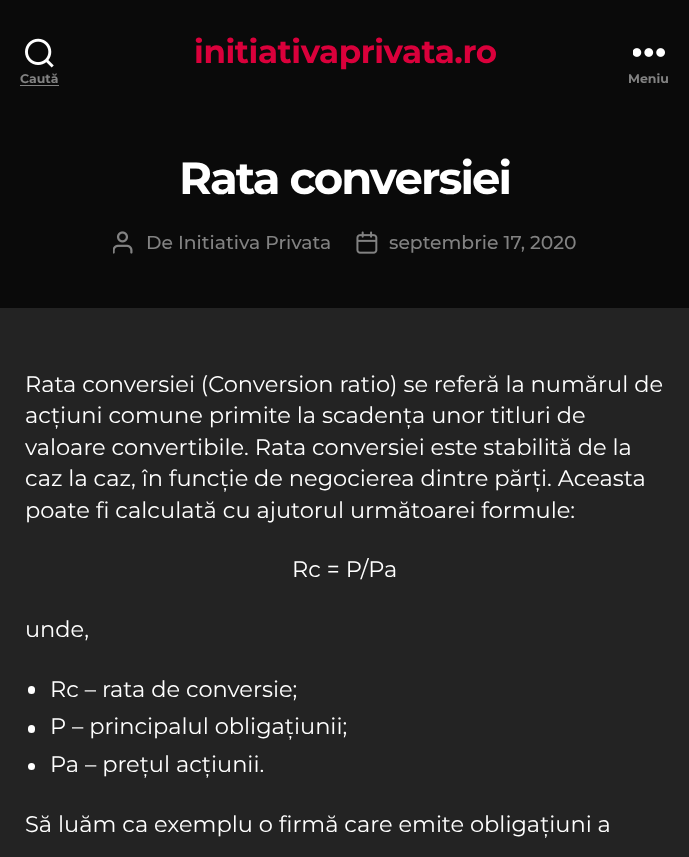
async function draw(canvas) {
  canvas.width = 689;
  canvas.height = 857;
  const ctx = canvas.getContext('2d');
  ctx.miterLimit = 4;
  ctx.fontKerning = 'normal';
  function label(s, x, y, font, color) {
    ctx.font = font;
    ctx.fillStyle = color;
    ctx.fillText(s, x, y);
  }
  function rect(x, y, w, h, color) {
    ctx.fillStyle = color;
    ctx.fillRect(x, y, w, h);
  }
  function roundedRect(x, y, w, h, r, color) {
    ctx.fillStyle = color;
    ctx.beginPath();
    ctx.roundRect(x, y, w, h, r);
    ctx.fill();
  }
  async function image(src, x, y, w, h) {
    const img = new Image();
    img.src = src;
    await img.decode();
    ctx.drawImage(img, x, y, w, h);
  }

  rect(0, 0, 689, 857, '#232323');
  rect(0, 0, 689, 308, '#0a0a0a');
  ctx.letterSpacing = '-0.4px';
  label('initiativaprivata.ro', 194, 63, 'bold 32.5px Montserrat', '#da003b');
  await image('assets/img1.png', 25, 38, 29, 30);
  ctx.letterSpacing = '0px';
  label('Caută', 20, 83, 'bold 12.5px Montserrat', '#828282');
  rect(20, 85, 39, 1, '#828282');
  await image('assets/img2.png', 633, 48, 32, 9);
  label('Meniu', 628, 83, 'bold 12.5px Montserrat', '#828282');
  ctx.letterSpacing = '-1.9px';
  label('Rata conversiei', 179, 194, 'bold 45px Montserrat', '#fff');
  await image('assets/img3.png', 113, 231, 20, 23);
  ctx.letterSpacing = '0px';
  label('De Initiativa Privata', 146, 249, '500 18.75px Montserrat', '#828282');
  await image('assets/img4.png', 356, 231, 22, 23);
  label('septembrie 17, 2020', 389, 249, '500 18.75px Montserrat', '#828282');
  label('Rata conversiei (Conversion ratio) se referă la numărul de', 25, 392, '22.5px Montserrat', '#fff');
  label('acțiuni comune primite la scadența unor titluri de', 25, 423, '22.5px Montserrat', '#fff');
  label('valoare convertibile. Rata conversiei este stabilită de la', 25, 455, '22.5px Montserrat', '#fff');
  label('caz la caz, în funcție de negocierea dintre părți. Aceasta', 25, 486, '22.5px Montserrat', '#fff');
  label('poate fi calculată cu ajutorul următoarei formule:', 25, 518, '22.5px Montserrat', '#fff');
  label('Rc = P/Pa', 292, 577, '22.5px Montserrat', '#fff');
  label('unde,', 25, 637, '22.5px Montserrat', '#fff');
  roundedRect(28, 686, 7, 8, 3.5, '#fff');
  label('Rc – rata de conversie;', 50, 697, '22.5px Montserrat', '#fff');
  roundedRect(28, 725, 7, 8, 3.5, '#fff');
  label('P – principalul obligațiunii;', 50, 734, '22.5px Montserrat', '#fff');
  ctx.beginPath();
  ctx.arc(31.5, 766.5, 3.5, 0, 2 * Math.PI);
  ctx.fill();
  label('Pa – prețul acțiunii.', 50, 772, '22.5px Montserrat', '#fff');
  label('Să luăm ca exemplu o firmă care emite obligațiuni a', 25, 832, '22.5px Montserrat', '#fff');
}

draw(document.querySelector('canvas'));
